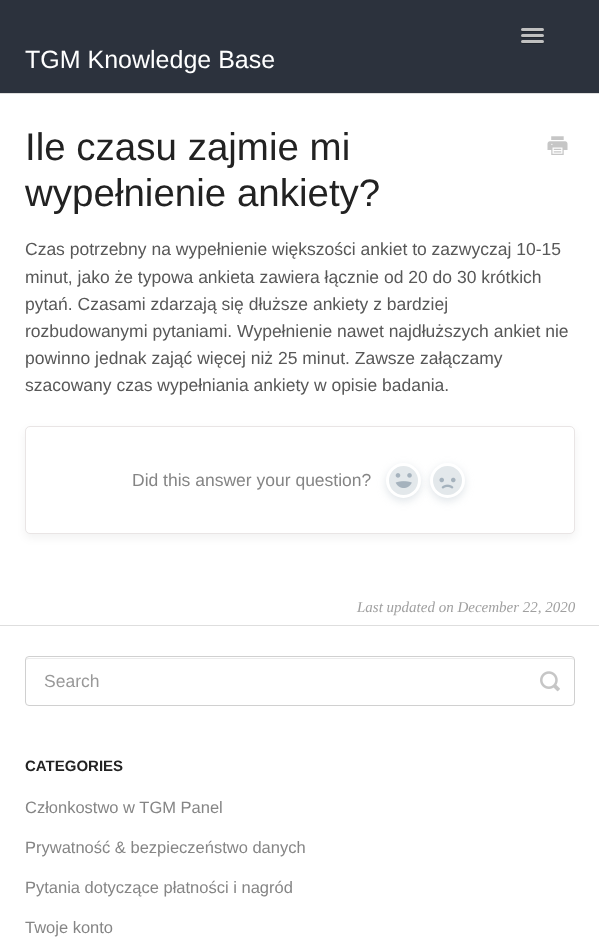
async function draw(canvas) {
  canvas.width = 599;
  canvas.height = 946;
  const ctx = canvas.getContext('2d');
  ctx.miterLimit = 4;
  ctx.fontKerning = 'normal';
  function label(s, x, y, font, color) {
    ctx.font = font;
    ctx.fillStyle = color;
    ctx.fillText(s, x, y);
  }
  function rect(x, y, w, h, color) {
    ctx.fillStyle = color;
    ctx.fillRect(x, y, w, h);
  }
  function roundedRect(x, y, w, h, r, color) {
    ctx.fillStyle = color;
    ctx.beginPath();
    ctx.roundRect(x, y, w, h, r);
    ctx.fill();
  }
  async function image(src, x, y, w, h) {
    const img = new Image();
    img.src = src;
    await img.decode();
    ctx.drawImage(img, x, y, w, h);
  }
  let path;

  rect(0, 0, 599, 946, '#fff');
  rect(0, 0, 599, 93, '#2c323d');
  ctx.fillStyle = '#21262e';
  path = new Path2D('M521.5 29.5L521 31C521.5 33 525 32 526 32H539C540 32 543.5 33 544 31L543.5 29.5L542.5 30H522.5Z');
  ctx.fill(path);
  roundedRect(521, 28, 23, 3, 1.5, '#c0c0c0');
  ctx.fillStyle = '#21262e';
  path = new Path2D('M521.5 35.5L521 37C521.5 39 525 38 526 38H539C540 38 543.5 39 544 37L543.5 35.5C543.5 36 543 36 542.5 36H522.5C522 36 521.5 36 521.5 35.5Z');
  ctx.fill(path);
  roundedRect(521, 34, 23, 3, 1.5, '#c0c0c0');
  ctx.fillStyle = '#21262e';
  path = new Path2D('M521.5 41.5C519 44.5 525.5 44 526 44H539C539.5 44 546 44.5 543.5 41.5C543.5 42 543 42.5 542.5 42.5H522.5C522 42.5 521.5 42 521.5 41.5Z');
  ctx.fill(path);
  roundedRect(521, 40, 23, 3, 1.5, '#c0c0c0');
  label('TGM Knowledge Base', 25, 68, '25px Liberation Sans', '#fff');
  rect(0, 93, 599, 1, '#dedede');
  rect(0, 625, 599, 1, '#dedede');
  label('Ile czasu zajmie mi', 25, 160, '38.5px Liberation Sans', '#222');
  label('wypełnienie ankiety?', 25, 206, '38.5px Liberation Sans', '#222');
  await image('assets/img1.png', 547, 136, 21, 19);
  label('Czas potrzebny na wypełnienie większości ankiet to zazwyczaj 10-15', 25, 255, '17.5px Liberation Sans', '#585858');
  label('minut, jako że typowa ankieta zawiera łącznie od 20 do 30 krótkich', 25, 283, '17.5px Liberation Sans', '#585858');
  label('pytań. Czasami zdarzają się dłuższe ankiety z bardziej', 25, 310, '17.5px Liberation Sans', '#585858');
  label('rozbudowanymi pytaniami. Wypełnienie nawet najdłuższych ankiet nie', 25, 337, '17.5px Liberation Sans', '#585858');
  label('powinno jednak zająć więcej niż 25 minut. Zawsze załączamy', 25, 364, '17.5px Liberation Sans', '#585858');
  label('szacowany czas wypełniania ankiety w opisie badania.', 25, 391, '17.5px Liberation Sans', '#585858');
  ctx.fillStyle = '#0000000d';
  ctx.filter = 'blur(4px)';
  ctx.beginPath();
  ctx.roundRect(25, 430, 550, 108, 5);
  ctx.fill();
  ctx.filter = 'none';
  ctx.fillStyle = '#fff';
  ctx.beginPath();
  ctx.roundRect(25.5, 426.5, 549, 107, 4.5);
  ctx.fill();
  ctx.strokeStyle = '#e9e5e5';
  ctx.stroke();
  label('Did this answer your question?', 132, 486, '17.5px Liberation Sans', '#858585');
  ctx.fillStyle = '#c1cbd480';
  ctx.filter = 'blur(4px)';
  ctx.beginPath();
  ctx.roundRect(386, 466, 35, 35, 17.5);
  ctx.fill();
  ctx.filter = 'none';
  ctx.fillStyle = '#e3e8eb';
  ctx.beginPath();
  ctx.arc(403.5, 480.5, 16, 0, 2 * Math.PI);
  ctx.fill();
  ctx.strokeStyle = '#fff';
  ctx.lineWidth = 3;
  ctx.stroke();
  await image('assets/img2.png', 395, 473, 17, 15);
  ctx.fillStyle = '#c1cbd480';
  ctx.filter = 'blur(4px)';
  ctx.beginPath();
  ctx.roundRect(430, 466, 35, 35, 17.5);
  ctx.fill();
  ctx.filter = 'none';
  ctx.fillStyle = '#e3e8eb';
  ctx.beginPath();
  ctx.arc(447.5, 480.5, 16, 0, 2 * Math.PI);
  ctx.fill();
  ctx.stroke();
  await image('assets/img3.png', 439, 477, 17, 12);
  label('Last updated on December 22, 2020', 357, 612, 'italic 15px Liberation Serif', '#a0a0a0');
  ctx.fillStyle = '#ececec';
  path = new Path2D('M29 659H571C573 659 574 660 574 661C574 659 573 658 572 658H28C27 658 26 659 26 661C26 660 27 659 29 659Z');
  ctx.fill(path);
  ctx.beginPath();
  ctx.roundRect(25.5, 656.5, 549, 49, 3.5);
  ctx.strokeStyle = '#d0d0d0';
  ctx.lineWidth = 1;
  ctx.stroke();
  label('Search', 44, 687, '17.5px Liberation Sans', '#999');
  await image('assets/img4.png', 540, 671, 20, 21);
  label('CATEGORIES', 25, 771, 'bold 15px Liberation Sans', '#222');
  label('Członkostwo w TGM Panel', 25, 813, '16.5px Liberation Sans', '#858585');
  label('Prywatność & bezpieczeństwo danych', 25, 853, '16.5px Liberation Sans', '#858585');
  label('Pytania dotyczące płatności i nagród', 25, 893, '16.5px Liberation Sans', '#858585');
  label('Twoje konto', 25, 933, '16.5px Liberation Sans', '#858585');
}

draw(document.querySelector('canvas'));
